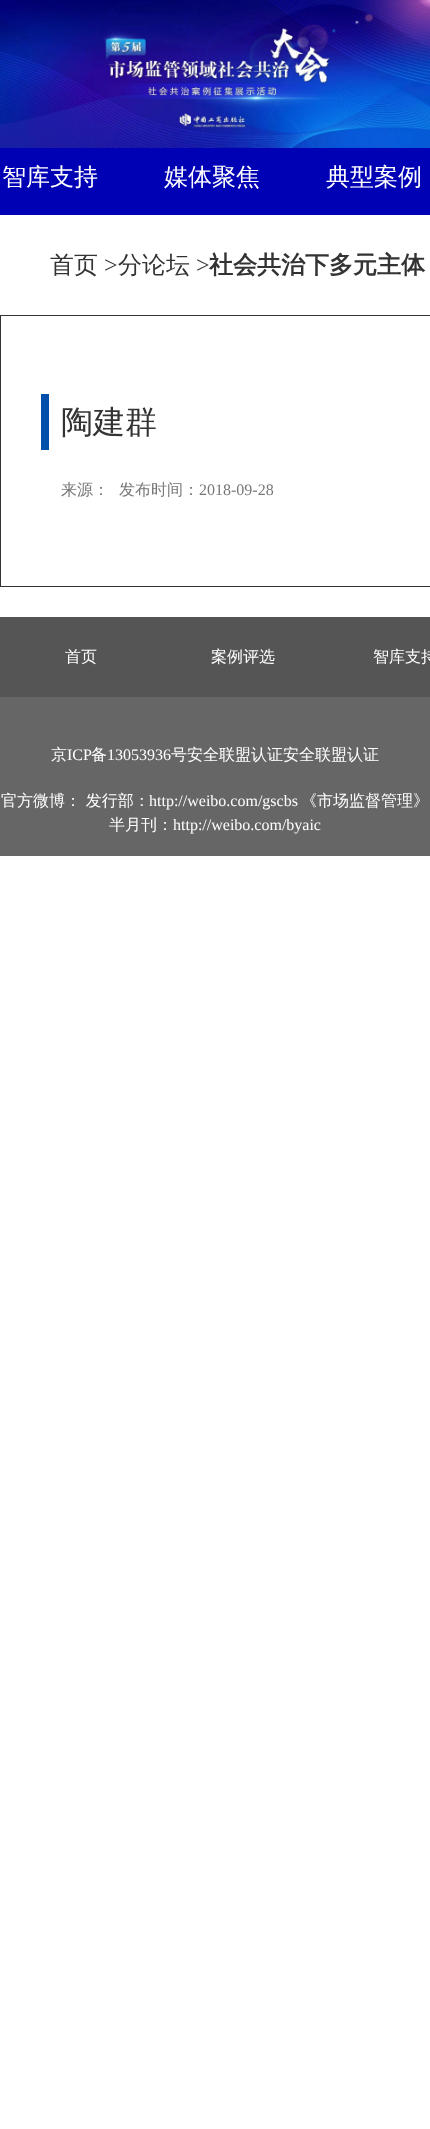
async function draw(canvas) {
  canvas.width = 430;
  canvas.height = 2129;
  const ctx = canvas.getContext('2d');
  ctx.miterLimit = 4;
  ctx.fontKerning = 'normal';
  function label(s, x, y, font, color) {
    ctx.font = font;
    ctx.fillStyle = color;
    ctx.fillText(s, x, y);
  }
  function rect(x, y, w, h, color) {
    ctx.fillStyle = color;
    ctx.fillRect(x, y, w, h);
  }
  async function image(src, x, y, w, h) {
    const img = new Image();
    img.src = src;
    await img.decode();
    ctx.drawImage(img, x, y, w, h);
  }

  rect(0, 0, 430, 2129, '#fff');
  await image('assets/img1.png', 0, 0, 430, 148);
  rect(0, 148, 430, 67, '#0001b5');
  label('智库支持', 2, 185, '500 24px WenQuanYi Zen Hei', '#fff');
  label('媒体聚焦', 164, 185, '500 24px WenQuanYi Zen Hei', '#fff');
  label('典型案例', 326, 185, '500 24px WenQuanYi Zen Hei', '#fff');
  label('首页', 50, 273, '500 24px WenQuanYi Zen Hei', '#333');
  label('>', 104, 273, '24px Liberation Serif', '#333');
  label('分论坛', 118, 273, '500 24px WenQuanYi Zen Hei', '#333');
  label('>', 196, 273, '24px Liberation Serif', '#333');
  label('社会共治下多元主体', 209, 273, 'bold 24px WenQuanYi Zen Hei', '#333');
  ctx.strokeStyle = '#333';
  ctx.strokeRect(0.5, 315.5, 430, 271);
  rect(41, 394, 8, 56, '#0050ab');
  label('陶建群', 61, 433, '500 32px WenQuanYi Zen Hei', '#333');
  label('来源：', 61, 495, '500 16px WenQuanYi Zen Hei', '#777');
  label('发布时间：', 119, 495, '500 16px WenQuanYi Zen Hei', '#777');
  label('2018-09-28', 199, 495, '16px Liberation Serif', '#777');
  rect(0, 617, 430, 80, '#555');
  label('首页', 65, 662, '500 16px WenQuanYi Zen Hei', '#fff');
  label('案例评选', 211, 662, '500 16px WenQuanYi Zen Hei', '#fff');
  label('智库支持', 373, 662, '500 16px WenQuanYi Zen Hei', '#fff');
  rect(0, 697, 430, 159, '#666');
  label('京', 51, 760, '500 16px WenQuanYi Zen Hei', '#fff');
  label('ICP', 67, 760, '16px Liberation Serif', '#fff');
  label('备', 91, 760, '500 16px WenQuanYi Zen Hei', '#fff');
  label('13053936', 107, 760, '16px Liberation Serif', '#fff');
  label('号安全联盟认证安全联盟认证', 171, 760, '500 16px WenQuanYi Zen Hei', '#fff');
  label('官方微博： 发行部：', 1, 806, '500 16px WenQuanYi Zen Hei', '#fff');
  label('http://weibo.com/gscbs', 149, 806, '16px Liberation Serif', '#fff');
  label('《市场监督管理》', 301, 806, '500 16px WenQuanYi Zen Hei', '#fff');
  label('半月刊：', 109, 830, '500 16px WenQuanYi Zen Hei', '#fff');
  label('http://weibo.com/byaic', 173, 830, '16px Liberation Serif', '#fff');
}

draw(document.querySelector('canvas'));
